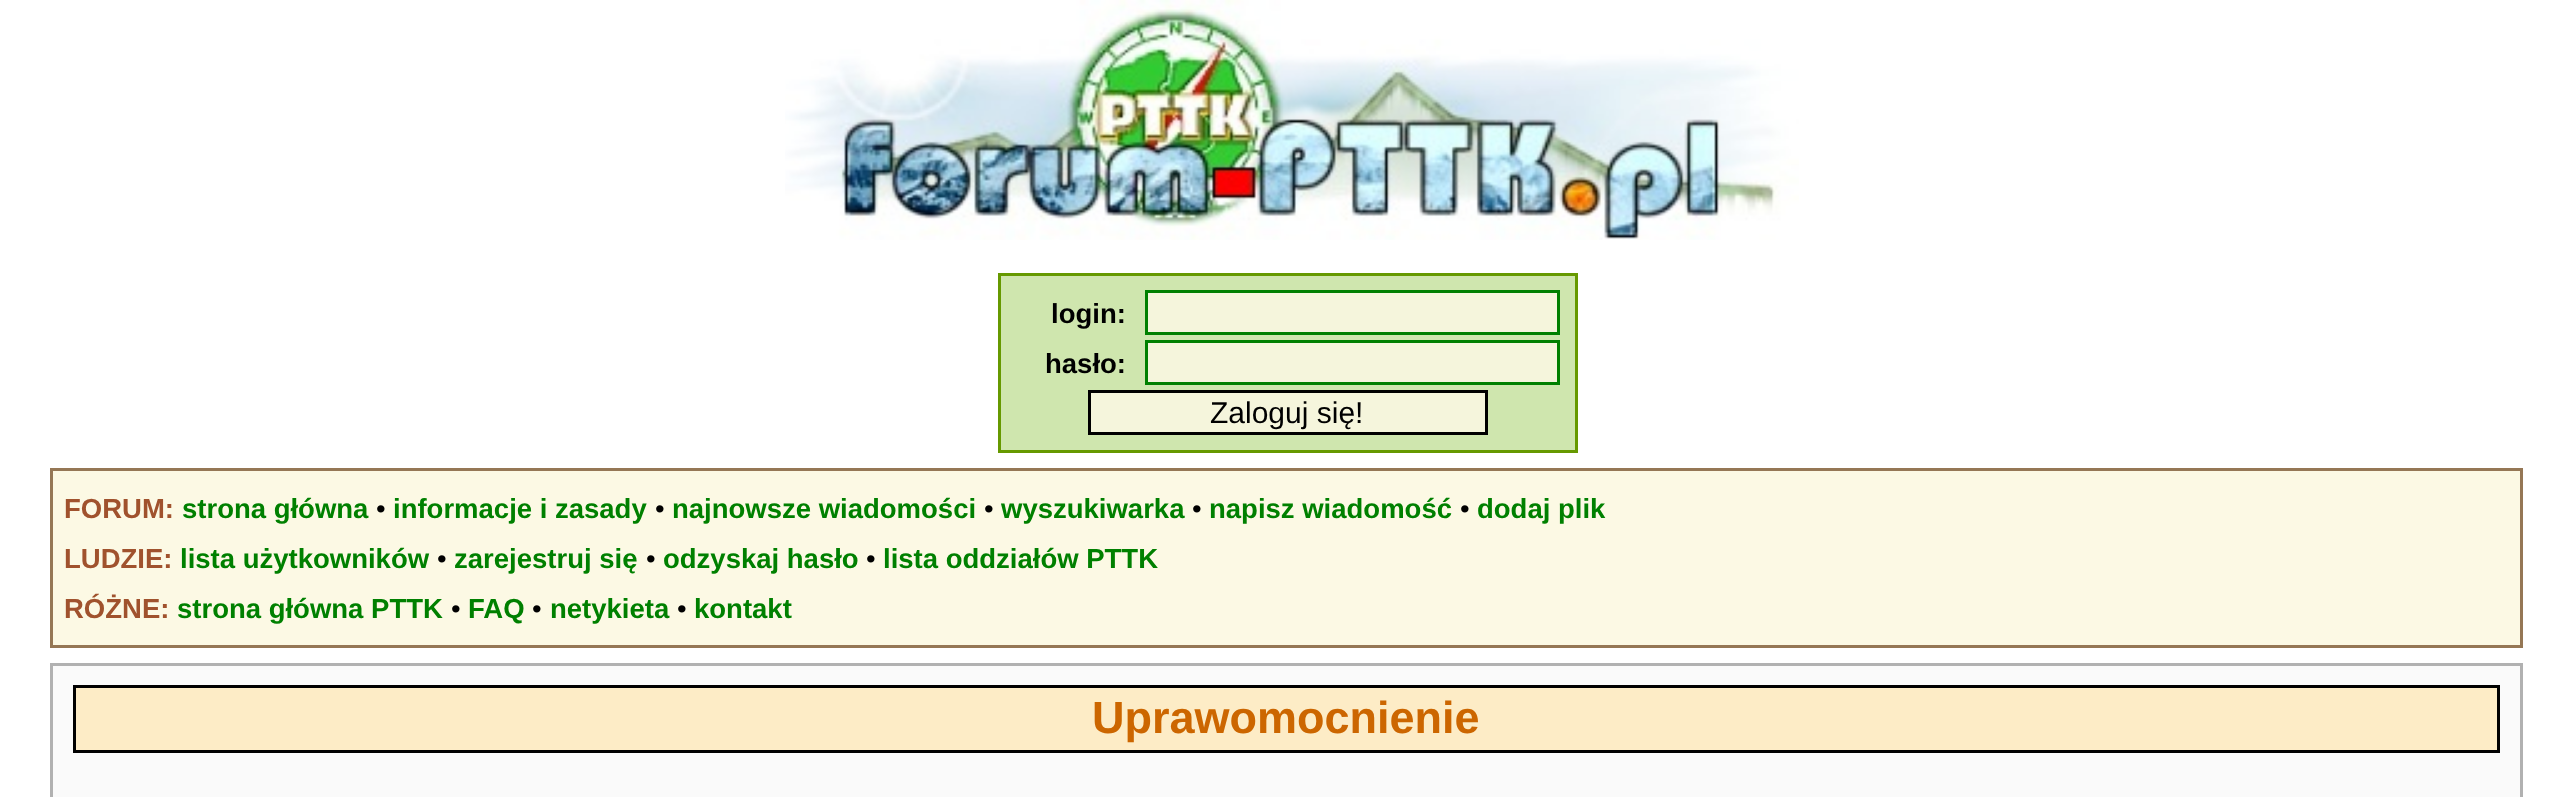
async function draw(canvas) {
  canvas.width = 2571;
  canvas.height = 797;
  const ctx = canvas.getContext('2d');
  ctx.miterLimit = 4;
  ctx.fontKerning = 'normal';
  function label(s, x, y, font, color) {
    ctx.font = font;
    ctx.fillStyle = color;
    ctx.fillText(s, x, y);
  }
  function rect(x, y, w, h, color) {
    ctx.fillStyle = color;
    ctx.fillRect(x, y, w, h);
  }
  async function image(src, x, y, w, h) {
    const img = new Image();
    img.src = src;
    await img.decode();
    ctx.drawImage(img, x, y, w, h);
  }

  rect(0, 0, 2571, 797, '#fff');
  await image('assets/img1.png', 785, 0, 1014, 240);
  ctx.fillStyle = '#cfe6ae';
  ctx.beginPath();
  ctx.rect(999.5, 274.5, 577, 177);
  ctx.fill();
  ctx.strokeStyle = '#690';
  ctx.lineWidth = 3;
  ctx.stroke();
  label('login:', 1051, 323, 'bold 27.5px Liberation Sans', '#000');
  ctx.fillStyle = '#f5f5dc';
  ctx.beginPath();
  ctx.rect(1146.5, 291.5, 412, 42);
  ctx.fill();
  ctx.strokeStyle = '#008000';
  ctx.stroke();
  label('hasło:', 1045, 373, 'bold 27.5px Liberation Sans', '#000');
  ctx.fillStyle = '#f5f5dc';
  ctx.beginPath();
  ctx.rect(1146.5, 341.5, 412, 42);
  ctx.fill();
  ctx.stroke();
  ctx.beginPath();
  ctx.rect(1089.5, 391.5, 397, 42);
  ctx.fill();
  ctx.strokeStyle = '#000';
  ctx.stroke();
  label('Zaloguj się!', 1210, 423, '30px Liberation Sans', '#000');
  ctx.fillStyle = '#fcf9e4';
  ctx.beginPath();
  ctx.rect(51.5, 469.5, 2470, 177);
  ctx.fill();
  ctx.strokeStyle = '#957755';
  ctx.stroke();
  label('FORUM:', 64, 518, 'bold 27.5px Liberation Sans', '#a0522d');
  label('strona główna', 182, 518, 'bold 27.5px Liberation Sans', '#008000');
  label('•', 376, 518, '27.5px Liberation Sans', '#000');
  label('informacje i zasady', 393, 518, 'bold 27.5px Liberation Sans', '#008000');
  label('•', 655, 518, '27.5px Liberation Sans', '#000');
  label('najnowsze wiadomości', 672, 518, 'bold 27.5px Liberation Sans', '#008000');
  label('•', 984, 518, '27.5px Liberation Sans', '#000');
  label('wyszukiwarka', 1001, 518, 'bold 27.5px Liberation Sans', '#008000');
  label('•', 1192, 518, '27.5px Liberation Sans', '#000');
  label('napisz wiadomość', 1209, 518, 'bold 27.5px Liberation Sans', '#008000');
  label('•', 1460, 518, '27.5px Liberation Sans', '#000');
  label('dodaj plik', 1477, 518, 'bold 27.5px Liberation Sans', '#008000');
  label('LUDZIE:', 64, 568, 'bold 27.5px Liberation Sans', '#a0522d');
  label('lista użytkowników', 180, 568, 'bold 27.5px Liberation Sans', '#008000');
  label('•', 437, 568, '27.5px Liberation Sans', '#000');
  label('zarejestruj się', 454, 568, 'bold 27.5px Liberation Sans', '#008000');
  label('•', 646, 568, '27.5px Liberation Sans', '#000');
  label('odzyskaj hasło', 663, 568, 'bold 27.5px Liberation Sans', '#008000');
  label('•', 866, 568, '27.5px Liberation Sans', '#000');
  label('lista oddziałów PTTK', 883, 568, 'bold 27.5px Liberation Sans', '#008000');
  label('RÓŻNE:', 64, 618, 'bold 27.5px Liberation Sans', '#a0522d');
  label('strona główna PTTK', 177, 618, 'bold 27.5px Liberation Sans', '#008000');
  label('•', 451, 618, '27.5px Liberation Sans', '#000');
  label('FAQ', 468, 618, 'bold 27.5px Liberation Sans', '#008000');
  label('•', 532, 618, '27.5px Liberation Sans', '#000');
  label('netykieta', 550, 618, 'bold 27.5px Liberation Sans', '#008000');
  label('•', 677, 618, '27.5px Liberation Sans', '#000');
  label('kontakt', 694, 618, 'bold 27.5px Liberation Sans', '#008000');
  ctx.fillStyle = '#fafafa';
  ctx.beginPath();
  ctx.rect(51.5, 664.5, 2470, 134);
  ctx.fill();
  ctx.strokeStyle = '#b1b1b1';
  ctx.stroke();
  ctx.fillStyle = '#fdecc6';
  ctx.beginPath();
  ctx.rect(74.5, 686.5, 2424, 65);
  ctx.fill();
  ctx.strokeStyle = '#000';
  ctx.stroke();
  label('Uprawomocnienie', 1092, 733, 'bold 45px Liberation Sans', '#c60');
}

draw(document.querySelector('canvas'));
